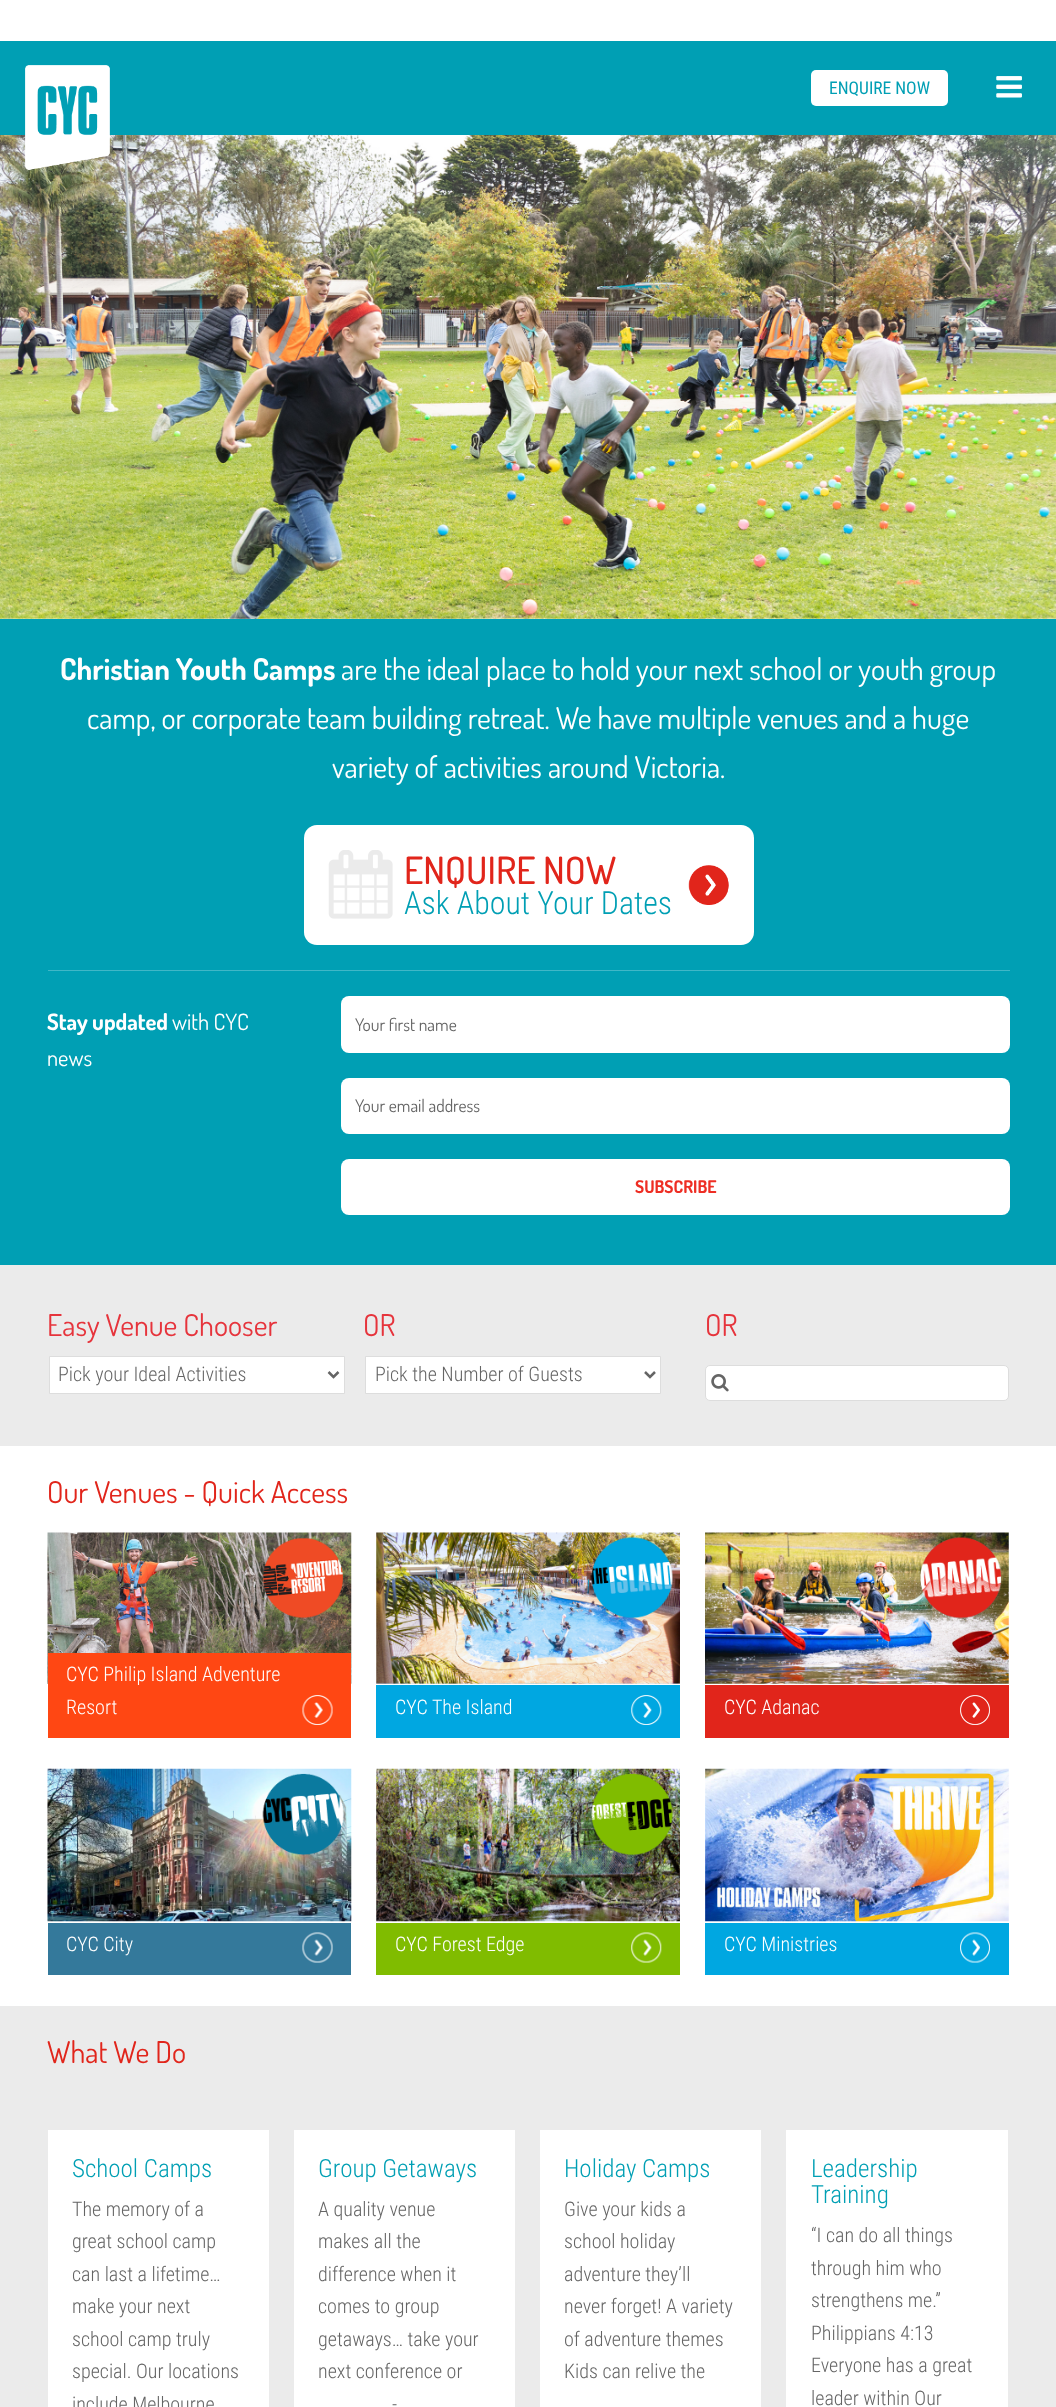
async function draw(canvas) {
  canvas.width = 1056;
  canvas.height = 2407;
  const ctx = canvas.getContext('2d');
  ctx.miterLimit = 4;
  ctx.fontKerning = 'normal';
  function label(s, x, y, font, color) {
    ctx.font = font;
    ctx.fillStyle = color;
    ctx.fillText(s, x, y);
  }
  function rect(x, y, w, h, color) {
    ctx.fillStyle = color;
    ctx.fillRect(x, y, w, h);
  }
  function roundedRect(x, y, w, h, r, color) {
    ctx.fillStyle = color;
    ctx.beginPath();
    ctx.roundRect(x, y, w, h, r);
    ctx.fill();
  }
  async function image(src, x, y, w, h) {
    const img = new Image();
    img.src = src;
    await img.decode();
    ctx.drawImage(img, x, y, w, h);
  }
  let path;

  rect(0, 0, 1056, 2407, '#fff');
  rect(0, 41, 1056, 94, '#009fb4');
  await image('assets/img3.png', 0, 135, 1056, 484);
  await image('assets/img1.png', 25, 65, 85, 105);
  roundedRect(811, 70, 137, 36, 5, '#fff');
  label('ENQUIRE NOW', 829, 94, '17.5px Roboto Condensed', '#009fb4');
  await image('assets/img2.png', 996, 76, 26, 22);
  rect(0, 619, 1056, 646, '#009fb4');
  label('Christian Youth Camps', 60, 680, 'bold 30px Dosis', '#fff');
  label('are the ideal place to hold your next school or youth group', 341, 680, '30px Dosis', '#fff');
  label('camp, or corporate team building retreat. We have multiple venues and a huge', 87, 729, '30px Dosis', '#fff');
  label('variety of activities around Victoria.', 332, 778, '30px Dosis', '#fff');
  roundedRect(304, 825, 450, 120, 13, '#fff');
  await image('assets/img4.png', 328, 850, 65, 69);
  label('ENQUIRE NOW', 404, 884, '500 37.5px Dosis', '#e1251b');
  label('Ask About Your Dates', 404, 914, '300 31.9px Roboto Condensed', '#009fb4');
  await image('assets/img5.png', 688, 865, 41, 40);
  rect(48, 970, 962, 1, '#40b7c7');
  label('Stay updated', 47, 1030, 'bold 22.5px Dosis', '#fff');
  label('with CYC', 172, 1030, '22.5px Dosis', '#fff');
  label('news', 47, 1066, '22.5px Dosis', '#fff');
  roundedRect(341, 996, 669, 57, 8, '#fff');
  label('Your first name', 355, 1031, '17.5px Dosis', '#656565');
  roundedRect(341, 1078, 669, 56, 8, '#fff');
  label('Your email address', 355, 1112, '17.5px Dosis', '#656565');
  roundedRect(341, 1159, 669, 56, 8, '#fff');
  label('SUBSCRIBE', 635, 1193, 'bold 17.5px Dosis', '#ee2e24');
  rect(0, 1265, 1056, 181, '#ebebeb');
  label('Easy Venue Chooser', 47, 1336, '30px Dosis', '#e6343c');
  ctx.fillStyle = '#fff';
  ctx.beginPath();
  ctx.rect(49.5, 1356.5, 295, 37);
  ctx.fill();
  ctx.strokeStyle = '#ddd';
  ctx.stroke();
  path = new Path2D('M328.5 1372L333.5 1377L338.5 1372');
  ctx.strokeStyle = '#656565';
  ctx.lineWidth = 2.5;
  ctx.stroke(path);
  label('Pick your Ideal Activities', 58, 1381, '300 20px Roboto Condensed', '#656565');
  label('OR', 363, 1336, '30px Dosis', '#e6343c');
  ctx.fillStyle = '#fff';
  ctx.beginPath();
  ctx.rect(365.5, 1356.5, 295, 37);
  ctx.fill();
  ctx.strokeStyle = '#ddd';
  ctx.lineWidth = 1;
  ctx.stroke();
  path = new Path2D('M645 1372L650 1377L655 1372');
  ctx.strokeStyle = '#656565';
  ctx.lineWidth = 2.5;
  ctx.stroke(path);
  label('Pick the Number of Guests', 375, 1381, '300 20px Roboto Condensed', '#656565');
  label('OR', 705, 1336, '30px Dosis', '#e6343c');
  ctx.fillStyle = '#fff';
  ctx.beginPath();
  ctx.roundRect(705.5, 1365.5, 303, 35, 4.5);
  ctx.fill();
  ctx.strokeStyle = '#ddd';
  ctx.lineWidth = 1;
  ctx.stroke();
  await image('assets/img6.png', 711, 1374, 18, 18);
  label('Our Venues - Quick Access', 47, 1503, '30px Dosis', '#e1251b');
  await image('assets/img7.png', 47, 1532, 305, 152);
  rect(48, 1653, 303, 85, '#ff4713');
  label('CYC Philip Island Adventure', 66, 1681, '300 20px Roboto Condensed', '#fff');
  label('Resort', 66, 1714, '300 20px Roboto Condensed', '#fff');
  await image('assets/img8.png', 302, 1695, 31, 30);
  await image('assets/img9.png', 376, 1532, 304, 152);
  rect(376, 1685, 304, 53, '#00a7e1');
  label('CYC The Island', 395, 1714, '300 20px Roboto Condensed', '#fff');
  await image('assets/img10.png', 631, 1695, 31, 30);
  await image('assets/img11.png', 705, 1532, 304, 152);
  rect(705, 1685, 304, 53, '#e1251b');
  label('CYC Adanac', 724, 1714, '300 20px Roboto Condensed', '#fff');
  await image('assets/img12.png', 960, 1695, 30, 30);
  await image('assets/img13.png', 47, 1768, 305, 154);
  rect(48, 1923, 303, 52, '#34799b');
  label('CYC City', 66, 1951, '300 20px Roboto Condensed', '#fff');
  await image('assets/img14.png', 302, 1932, 31, 31);
  await image('assets/img15.png', 376, 1768, 304, 154);
  rect(376, 1923, 304, 52, '#80bc00');
  label('CYC Forest Edge', 395, 1951, '300 20px Roboto Condensed', '#fff');
  await image('assets/img16.png', 631, 1932, 31, 31);
  await image('assets/img17.png', 705, 1768, 304, 154);
  rect(705, 1923, 304, 52, '#00a7e1');
  label('CYC Ministries', 724, 1951, '300 20px Roboto Condensed', '#fff');
  await image('assets/img18.png', 960, 1932, 30, 31);
  rect(0, 2006, 1056, 401, '#ebebeb');
  label('What We Do', 47, 2063, '30px Dosis', '#e1251b');
  rect(48, 2130, 221, 277, '#fff');
  label('School Camps', 72, 2177, '300 25px Roboto Condensed', '#009fb4');
  label('The memory of a', 72, 2216, '300 20px Roboto Condensed', '#656565');
  label('great school camp', 72, 2248, '300 20px Roboto Condensed', '#656565');
  label('can last a lifetime…', 72, 2281, '300 20px Roboto Condensed', '#656565');
  label('make your next', 72, 2313, '300 20px Roboto Condensed', '#656565');
  label('school camp truly', 72, 2346, '300 20px Roboto Condensed', '#656565');
  label('special. Our locations', 72, 2378, '300 20px Roboto Condensed', '#656565');
  label('include Melbourne', 72, 2411, '300 20px Roboto Condensed', '#656565');
  rect(294, 2130, 221, 277, '#fff');
  label('Group Getaways', 318, 2177, '300 25px Roboto Condensed', '#009fb4');
  label('A quality venue', 318, 2216, '300 20px Roboto Condensed', '#656565');
  label('makes all the', 318, 2248, '300 20px Roboto Condensed', '#656565');
  label('difference when it', 318, 2281, '300 20px Roboto Condensed', '#656565');
  label('comes to group', 318, 2313, '300 20px Roboto Condensed', '#656565');
  label('getaways… take your', 318, 2346, '300 20px Roboto Condensed', '#656565');
  label('next conference or', 318, 2378, '300 20px Roboto Condensed', '#656565');
  label('-', 392, 2411, '300 20px Roboto Condensed', '#656565');
  rect(540, 2130, 221, 277, '#fff');
  label('Holiday Camps', 564, 2177, '300 25px Roboto Condensed', '#009fb4');
  label('Give your kids a', 564, 2216, '300 20px Roboto Condensed', '#656565');
  label('school holiday', 564, 2248, '300 20px Roboto Condensed', '#656565');
  label('adventure they’ll', 564, 2281, '300 20px Roboto Condensed', '#656565');
  label('never forget! A variety', 564, 2313, '300 20px Roboto Condensed', '#656565');
  label('of adventure themes', 564, 2346, '300 20px Roboto Condensed', '#656565');
  label('Kids can relive the', 564, 2378, '300 20px Roboto Condensed', '#656565');
  rect(786, 2130, 222, 277, '#fff');
  label('Leadership', 811, 2177, '300 25px Roboto Condensed', '#009fb4');
  label('Training', 811, 2203, '300 25px Roboto Condensed', '#009fb4');
  label('“I can do all things', 811, 2242, '300 20px Roboto Condensed', '#656565');
  label('through him who', 811, 2275, '300 20px Roboto Condensed', '#656565');
  label('strengthens me.”', 811, 2307, '300 20px Roboto Condensed', '#656565');
  label('Philippians 4:13', 811, 2340, '300 20px Roboto Condensed', '#656565');
  label('Everyone has a great', 811, 2372, '300 20px Roboto Condensed', '#656565');
  label('leader within Our', 811, 2405, '300 20px Roboto Condensed', '#656565');
}

draw(document.querySelector('canvas'));
